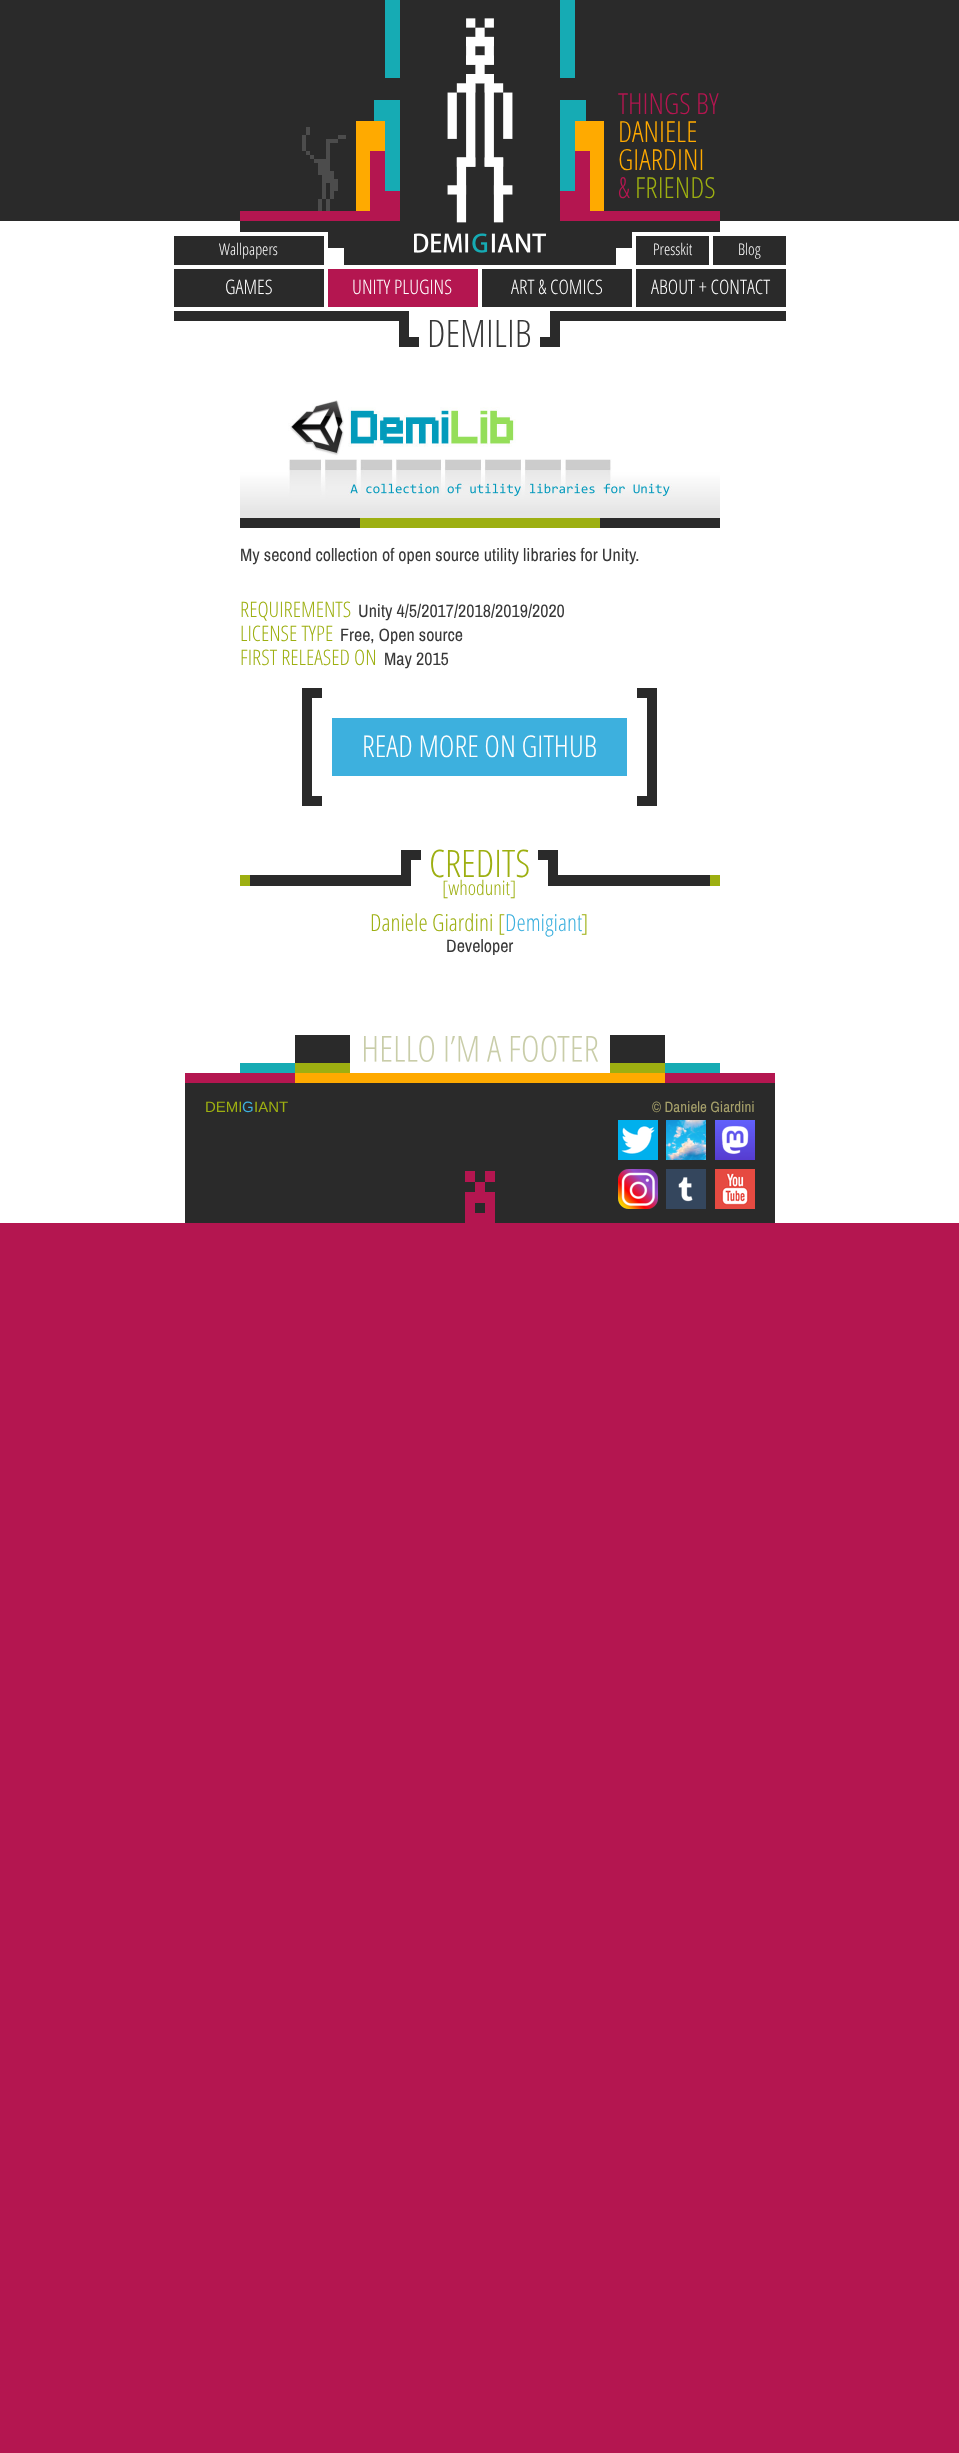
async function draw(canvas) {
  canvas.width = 959;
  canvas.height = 2453;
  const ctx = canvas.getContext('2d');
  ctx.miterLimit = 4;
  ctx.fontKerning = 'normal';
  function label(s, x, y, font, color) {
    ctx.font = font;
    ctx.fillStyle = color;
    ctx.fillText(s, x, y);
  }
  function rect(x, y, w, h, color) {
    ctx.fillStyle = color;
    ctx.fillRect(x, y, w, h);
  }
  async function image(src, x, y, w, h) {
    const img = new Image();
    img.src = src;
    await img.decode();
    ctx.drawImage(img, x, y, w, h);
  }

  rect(0, 0, 959, 2453, '#b41650');
  rect(0, 221, 959, 1002, '#fff');
  rect(0, 0, 959, 221, '#2a2a2a');
  await image('assets/img1.png', 240, 0, 480, 265);
  await image('assets/img2.png', 302, 127, 44, 84);
  await image('assets/img3.png', 414, 18, 132, 235);
  label('THINGS BY', 618, 114, '300 29px Open Sans Condensed', '#b41650');
  label('DANIELE', 618, 142, '300 29px Open Sans Condensed', '#fa0');
  label('GIARDINI', 618, 170, '300 29px Open Sans Condensed', '#fa0');
  label('&', 618, 198, '300 29px Open Sans Condensed', '#b41650');
  label('FRIENDS', 635, 198, '300 29px Open Sans Condensed', '#9daf11');
  rect(174, 236, 150, 29, '#2a2a2a');
  label('Wallpapers', 219, 255, '300 16px Open Sans Condensed', '#fff');
  rect(636, 236, 73, 29, '#2a2a2a');
  label('Presskit', 653, 255, '300 16px Open Sans Condensed', '#fff');
  rect(713, 236, 73, 29, '#2a2a2a');
  label('Blog', 738, 255, '300 16px Open Sans Condensed', '#fff');
  rect(174, 269, 150, 38, '#2a2a2a');
  label('GAMES', 225, 294, '300 20px Open Sans Condensed', '#fff');
  rect(328, 269, 150, 38, '#b41650');
  label('UNITY PLUGINS', 352, 294, '300 20px Open Sans Condensed', '#fff');
  rect(482, 269, 150, 38, '#2a2a2a');
  label('ART & COMICS', 511, 294, '300 20px Open Sans Condensed', '#fff');
  rect(636, 269, 150, 38, '#2a2a2a');
  label('ABOUT + CONTACT', 651, 294, '300 20px Open Sans Condensed', '#fff');
  rect(174, 311, 612, 10, '#2a2a2a');
  rect(399, 311, 161, 10, '#fff');
  await image('assets/img4.png', 399, 311, 20, 36);
  label('DEMILIB', 427, 347, '300 38px Open Sans Condensed', '#383838');
  await image('assets/img5.png', 540, 311, 20, 36);
  await image('assets/img6.png', 240, 400, 480, 118);
  await image('assets/img7.png', 240, 518, 480, 10);
  label('My second collection of open source utility libraries for Unity.', 240, 561, '18px Archivo Narrow', '#383838');
  label('REQUIREMENTS', 240, 617, '300 21.5px Open Sans Condensed', '#9daf11');
  label('Unity 4/5/2017/2018/2019/2020', 358, 617, '18px Archivo Narrow', '#383838');
  label('LICENSE TYPE', 240, 641, '300 21.5px Open Sans Condensed', '#9daf11');
  label('Free, Open source', 340, 641, '18px Archivo Narrow', '#383838');
  label('FIRST RELEASED ON', 240, 665, '300 21.5px Open Sans Condensed', '#9daf11');
  label('May 2015', 384, 665, '18px Archivo Narrow', '#383838');
  rect(647, 688, 10, 118, '#2a2a2a');
  rect(302, 688, 10, 118, '#2a2a2a');
  rect(312, 688, 10, 10, '#2a2a2a');
  rect(637, 688, 10, 10, '#2a2a2a');
  rect(332, 718, 295, 58, '#3db0de');
  label('READ MORE ON GITHUB', 362, 757, '300 30px Open Sans Condensed', '#fff');
  rect(312, 796, 10, 10, '#2a2a2a');
  rect(637, 796, 10, 10, '#2a2a2a');
  await image('assets/img8.png', 240, 875, 480, 11);
  rect(401, 875, 20, 11, '#fff');
  await image('assets/img9.png', 401, 850, 20, 36);
  rect(421, 875, 137, 11, '#fff');
  label('CREDITS', 429, 877, '300 38px Open Sans Condensed', '#9daf11');
  await image('assets/img10.png', 538, 850, 20, 36);
  label('[whodunit]', 442, 895, '300 20px Open Sans Condensed', '#9daf11');
  label('Daniele Giardini [', 370, 931, '300 23.5px Open Sans Condensed', '#9daf11');
  label('Demigiant', 505, 931, '300 23.5px Open Sans Condensed', '#3db0de');
  label(']', 581, 931, '300 23.5px Open Sans Condensed', '#9daf11');
  label('Developer', 446, 952, '18px Archivo Narrow', '#383838');
  await image('assets/img11.png', 185, 1035, 590, 48);
  rect(185, 1083, 590, 140, '#2a2a2a');
  await image('assets/img12.png', 465, 1171, 30, 52);
  label('DEMI', 205, 1112, '15px Liberation Sans', '#9daf11');
  label('G', 242, 1112, '15px Liberation Sans', '#3db0de');
  label('IANT', 254, 1112, '15px Liberation Sans', '#9daf11');
  label('© Daniele Giardini', 652, 1112, '15px Archivo Narrow', '#a7a16b');
  await image('assets/img13.png', 618, 1120, 40, 40);
  await image('assets/img14.png', 666, 1120, 40, 40);
  await image('assets/img15.png', 715, 1120, 40, 40);
  await image('assets/img16.png', 618, 1169, 40, 40);
  await image('assets/img17.png', 666, 1169, 40, 40);
  await image('assets/img18.png', 715, 1169, 40, 40);
}

draw(document.querySelector('canvas'));
